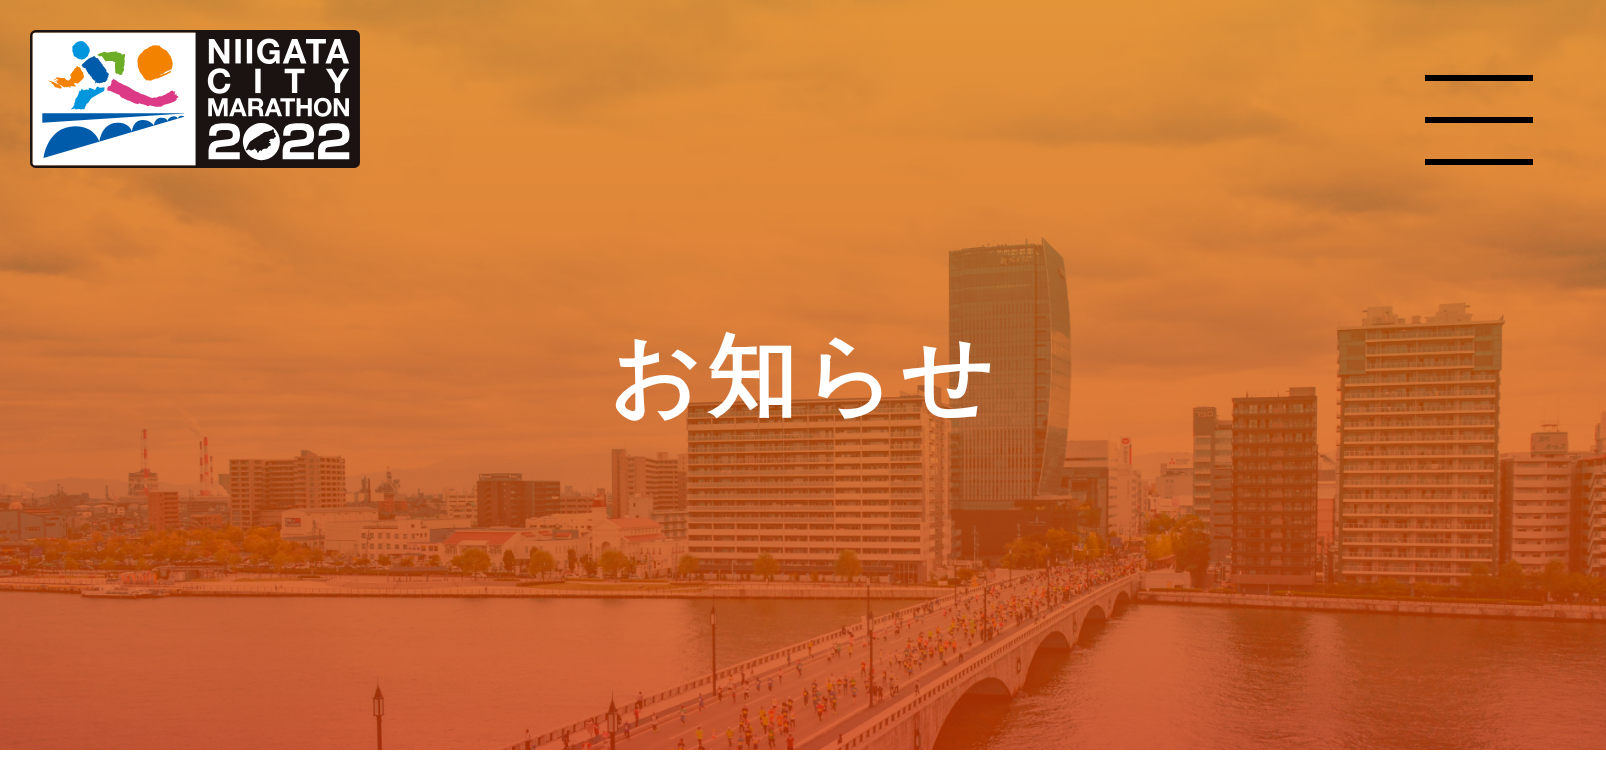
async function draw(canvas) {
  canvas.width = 1606;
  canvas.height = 769;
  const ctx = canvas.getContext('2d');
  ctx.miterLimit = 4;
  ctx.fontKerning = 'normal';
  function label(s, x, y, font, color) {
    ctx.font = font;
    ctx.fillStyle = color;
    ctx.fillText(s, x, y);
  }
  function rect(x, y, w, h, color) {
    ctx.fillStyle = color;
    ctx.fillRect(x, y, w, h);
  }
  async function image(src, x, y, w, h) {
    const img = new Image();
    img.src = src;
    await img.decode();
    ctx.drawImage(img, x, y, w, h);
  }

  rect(0, 0, 1606, 769, '#fff');
  await image('assets/img2.png', 0, 0, 1606, 750);
  await image('assets/img1.png', 30, 30, 330, 138);
  rect(1425, 75, 108, 6, '#000');
  rect(1425, 117, 108, 6, '#000');
  rect(1425, 159, 108, 6, '#000');
  ctx.letterSpacing = '6px';
  label('お知らせ', 609, 407, 'bold 90px WenQuanYi Zen Hei', '#fff');
}

draw(document.querySelector('canvas'));
